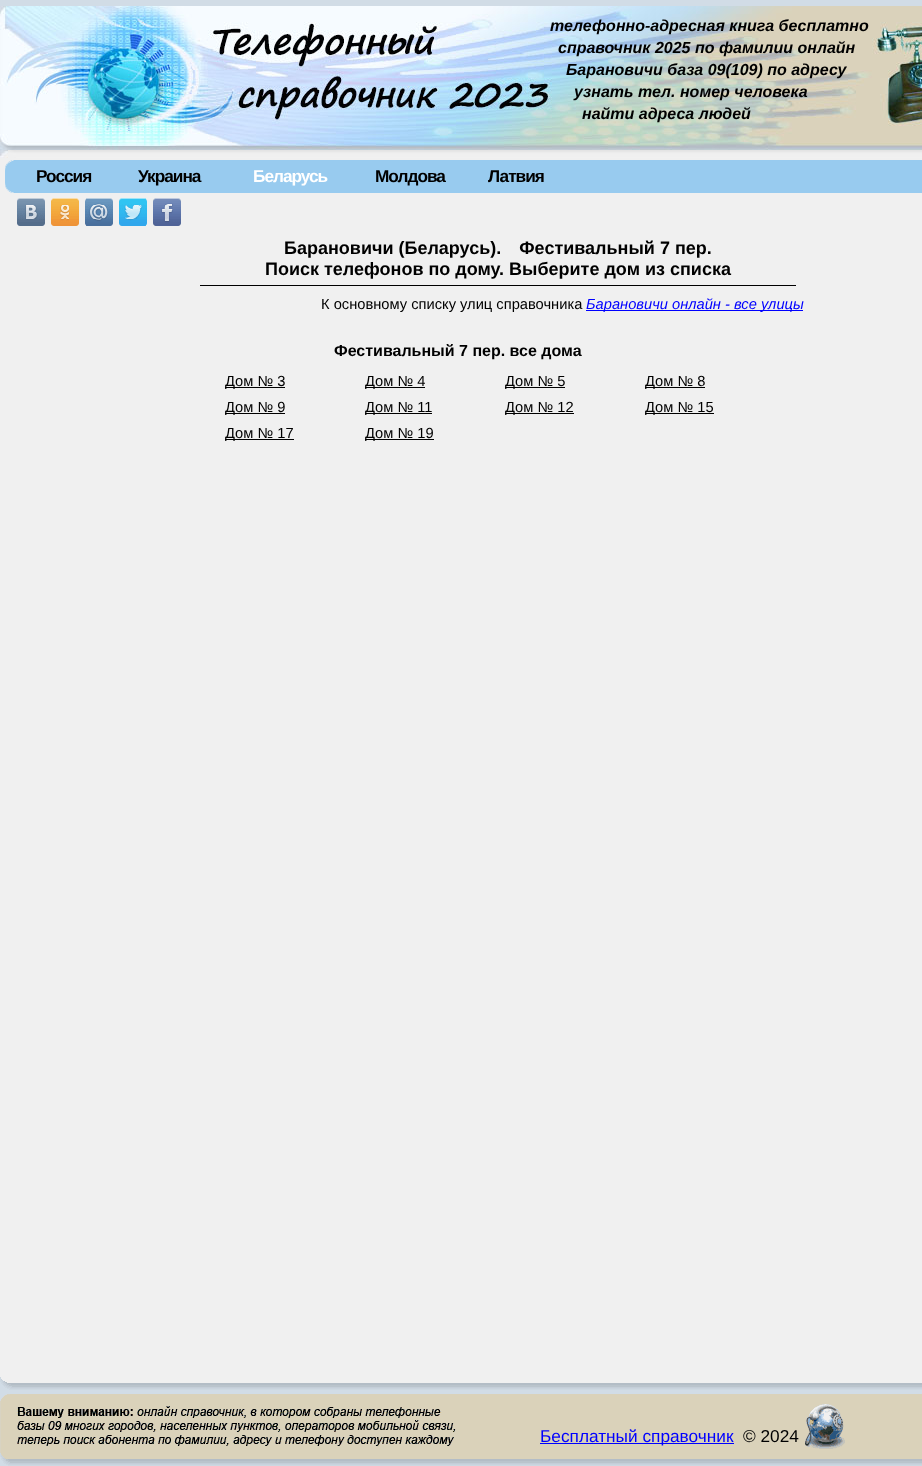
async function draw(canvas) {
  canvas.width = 922;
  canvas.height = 1466;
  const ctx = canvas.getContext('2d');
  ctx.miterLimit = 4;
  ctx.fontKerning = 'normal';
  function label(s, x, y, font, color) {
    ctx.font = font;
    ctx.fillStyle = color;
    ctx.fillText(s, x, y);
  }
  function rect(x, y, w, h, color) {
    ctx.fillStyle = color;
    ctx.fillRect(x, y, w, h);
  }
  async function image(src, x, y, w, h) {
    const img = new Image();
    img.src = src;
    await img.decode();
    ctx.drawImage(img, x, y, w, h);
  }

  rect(0, 0, 922, 1466, '#f0f0f0');
  rect(0, 0, 922, 6, '#d1dce6');
  await image('assets/img1.png', 0, 6, 922, 154);
  label('телефонно-адресная книга бесплатно', 550, 31, 'italic bold 16px Liberation Sans', '#000');
  label('справочник 2025 по фамилии онлайн', 558, 53, 'italic bold 16px Liberation Sans', '#000');
  label('Барановичи база 09(109) по адресу', 566, 75, 'italic bold 16px Liberation Sans', '#000');
  label('узнать тел. номер человека', 574, 97, 'italic bold 16px Liberation Sans', '#000');
  label('найти адреса людей', 582, 119, 'italic bold 16px Liberation Sans', '#000');
  rect(14, 160, 908, 33, '#98cbef');
  await image('assets/img2.png', 5, 160, 9, 33);
  ctx.letterSpacing = '-1px';
  label('Россия', 36, 182, 'bold 17.25px Liberation Sans', '#000');
  label('Украина', 138, 182, 'bold 17.25px Liberation Sans', '#000');
  label('Беларусь', 253, 182, 'bold 17.25px Liberation Sans', '#fff');
  label('Молдова', 375, 182, 'bold 17.25px Liberation Sans', '#000');
  label('Латвия', 488, 182, 'bold 17.25px Liberation Sans', '#000');
  await image('assets/img3.png', 17, 198, 28, 28);
  await image('assets/img4.png', 51, 198, 28, 28);
  await image('assets/img5.png', 85, 198, 28, 28);
  await image('assets/img6.png', 119, 198, 28, 28);
  await image('assets/img7.png', 153, 198, 28, 28);
  rect(200, 285, 596, 1, '#000');
  ctx.letterSpacing = '0px';
  label('Барановичи (Беларусь). Фестивальный 7 пер.', 284, 254, 'bold 18px Liberation Sans', '#000');
  label('Поиск телефонов по дому. Выберите дом из списка', 265, 275, 'bold 18px Liberation Sans', '#000');
  label('К основному списку улиц справочника', 321, 309, '14.7px Liberation Sans', '#000');
  rect(586, 310, 217, 1, '#00f');
  label('Барановичи онлайн - все улицы', 586, 309, 'italic 14.7px Liberation Sans', '#00f');
  label('Фестивальный 7 пер. все дома', 334, 356, 'bold 16px Liberation Sans', '#000');
  rect(225, 387, 60, 1, '#000');
  label('Дом № 3', 225, 386, '14.7px Liberation Sans', '#000');
  rect(365, 387, 60, 1, '#000');
  label('Дом № 4', 365, 386, '14.7px Liberation Sans', '#000');
  rect(505, 387, 60, 1, '#000');
  label('Дом № 5', 505, 386, '14.7px Liberation Sans', '#000');
  rect(645, 387, 60, 1, '#000');
  label('Дом № 8', 645, 386, '14.7px Liberation Sans', '#000');
  rect(225, 413, 60, 1, '#000');
  label('Дом № 9', 225, 412, '14.7px Liberation Sans', '#000');
  rect(365, 413, 67, 1, '#000');
  label('Дом № 11', 365, 412, '14.7px Liberation Sans', '#000');
  rect(505, 413, 69, 1, '#000');
  label('Дом № 12', 505, 412, '14.7px Liberation Sans', '#000');
  rect(645, 413, 69, 1, '#000');
  label('Дом № 15', 645, 412, '14.7px Liberation Sans', '#000');
  rect(225, 439, 69, 1, '#000');
  label('Дом № 17', 225, 438, '14.7px Liberation Sans', '#000');
  rect(365, 439, 69, 1, '#000');
  label('Дом № 19', 365, 438, '14.7px Liberation Sans', '#000');
  await image('assets/img8.png', 0, 1376, 922, 90);
  rect(540, 1443, 194, 1, '#00f');
  label('Бесплатный справочник', 540, 1442, '17.25px Liberation Sans', '#00f');
  label('© 2024', 743, 1442, '17.25px Liberation Sans', '#000');
}

draw(document.querySelector('canvas'));
